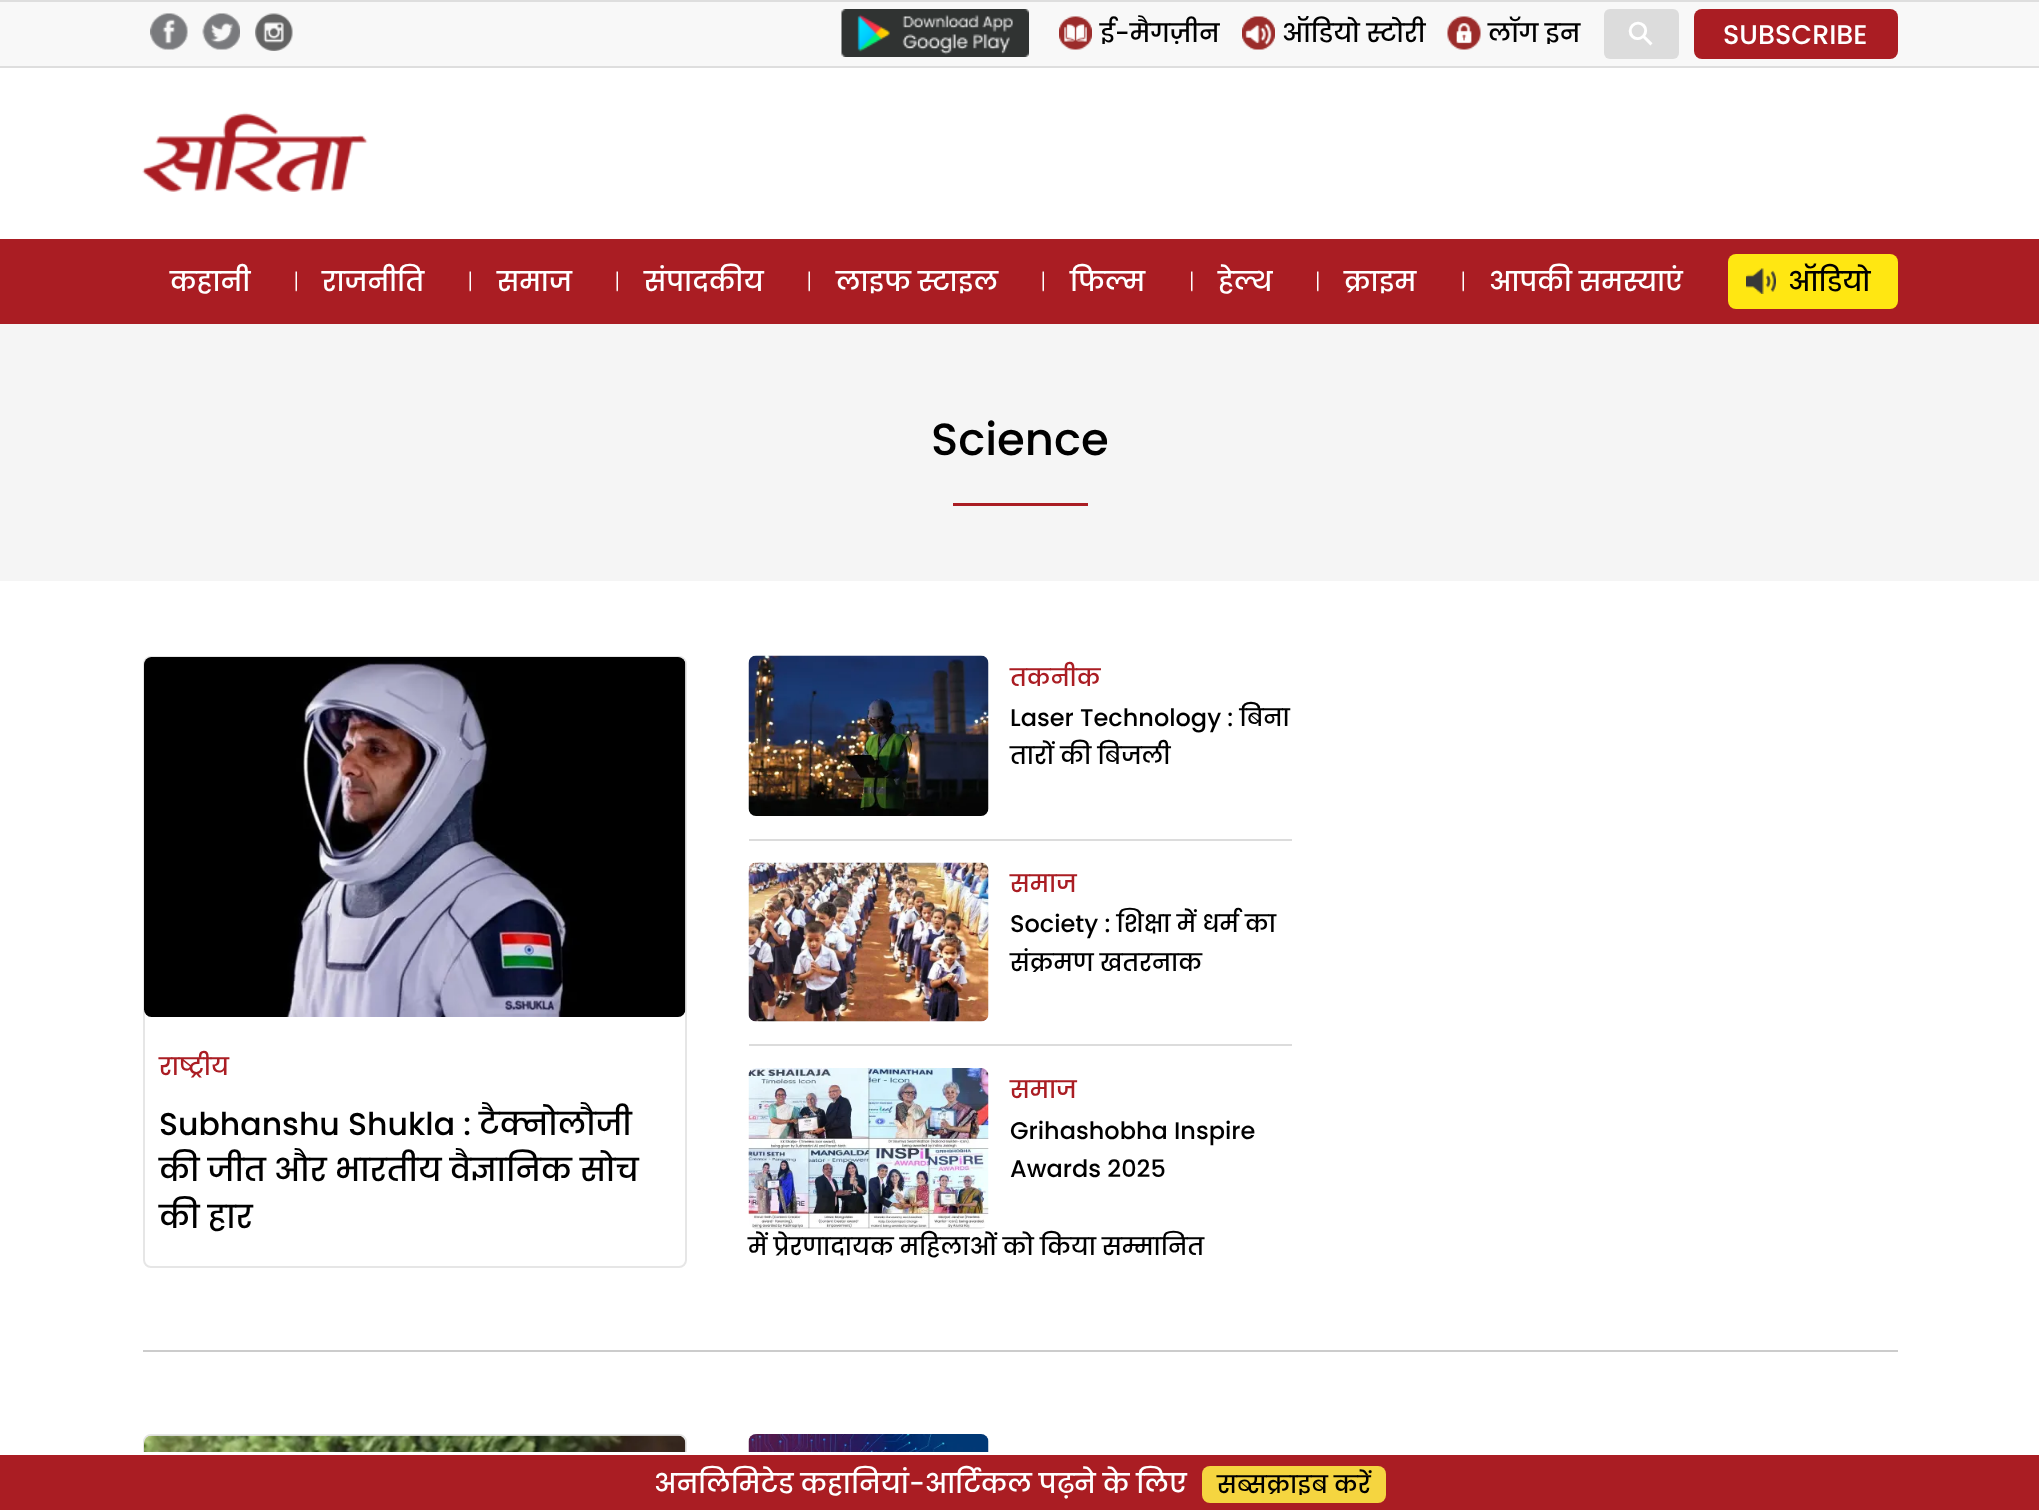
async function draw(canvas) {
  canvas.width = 2039;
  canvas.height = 1510;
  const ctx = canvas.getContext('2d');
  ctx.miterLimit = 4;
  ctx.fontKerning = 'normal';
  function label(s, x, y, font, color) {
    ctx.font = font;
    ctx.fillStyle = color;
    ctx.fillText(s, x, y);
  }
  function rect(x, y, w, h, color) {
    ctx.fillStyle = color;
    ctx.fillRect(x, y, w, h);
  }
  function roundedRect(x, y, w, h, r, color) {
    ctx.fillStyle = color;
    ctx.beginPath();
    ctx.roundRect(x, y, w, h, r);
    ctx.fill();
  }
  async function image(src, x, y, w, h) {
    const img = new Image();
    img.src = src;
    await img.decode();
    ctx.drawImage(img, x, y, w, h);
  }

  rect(0, 0, 2039, 1510, '#fff');
  rect(0, 2, 2039, 64, '#f8f8f8');
  rect(0, 0, 2039, 2, '#dedede');
  rect(0, 66, 2039, 2, '#dedede');
  await image('assets/img1.png', 150, 13, 38, 37);
  await image('assets/img2.png', 202, 13, 38, 37);
  await image('assets/img3.png', 255, 13, 38, 38);
  await image('assets/img4.png', 841, 9, 188, 48);
  await image('assets/img5.png', 1059, 16, 33, 34);
  label('ई-मैगज़ीन', 1100, 42, '500 25.5px Poppins', '#000');
  await image('assets/img6.png', 1242, 16, 33, 34);
  label('ऑडियो स्टोरी', 1282, 42, '500 25.5px Poppins', '#000');
  await image('assets/img7.png', 1447, 16, 34, 34);
  label('लॉग इन', 1488, 42, '500 25.5px Poppins', '#000');
  roundedRect(1604, 9, 75, 50, 6, '#dcdcdc');
  ctx.font = '33px DejaVu Sans';
  ctx.fillStyle = '#fff';
  ctx.save();
  ctx.translate(1640, 50);
  ctx.rotate(-45 * Math.PI / 180);
  ctx.fillText('⚲', 0, 0);
  ctx.restore();
  roundedRect(1694, 9, 204, 50, 8, '#aa1d23');
  label('SUBSCRIBE', 1723, 44, '500 27px Poppins', '#fff');
  await image('assets/img8.png', 142, 112, 226, 80);
  rect(0, 239, 2039, 85, '#aa1d23');
  label('कहानी', 170, 291, '500 27px Poppins', '#fff');
  await image('assets/img9.png', 295, 271, 2, 21);
  label('राजनीति', 322, 291, '500 27px Poppins', '#fff');
  await image('assets/img9.png', 469, 271, 2, 21);
  label('समाज', 497, 291, '500 27px Poppins', '#fff');
  await image('assets/img9.png', 616, 271, 2, 21);
  label('संपादकीय', 644, 291, '500 27px Poppins', '#fff');
  await image('assets/img9.png', 808, 271, 2, 21);
  label('लाइफ स्टाइल', 836, 291, '500 27px Poppins', '#fff');
  await image('assets/img9.png', 1042, 271, 2, 21);
  label('फिल्म', 1070, 291, '500 27px Poppins', '#fff');
  await image('assets/img10.png', 1191, 271, 2, 21);
  label('हेल्थ', 1218, 291, '500 27px Poppins', '#fff');
  await image('assets/img10.png', 1317, 271, 2, 21);
  label('क्राइम', 1344, 291, '500 27px Poppins', '#fff');
  await image('assets/img9.png', 1462, 271, 2, 21);
  label('आपकी समस्याएं', 1489, 291, '500 27px Poppins', '#fff');
  roundedRect(1728, 254, 170, 55, 8, '#ffe712');
  await image('assets/img11.png', 1746, 268, 30, 26);
  label('ऑडियो', 1788, 291, '500 27px Poppins', '#000');
  rect(0, 324, 2039, 257, '#f5f5f5');
  label('Science', 931, 455, '500 45px Poppins', '#000');
  rect(953, 503, 135, 3, '#aa1d23');
  ctx.beginPath();
  ctx.roundRect(144, 657, 542, 610, 7);
  ctx.strokeStyle = '#e6e6e6';
  ctx.lineWidth = 2;
  ctx.stroke();
  await image('assets/img12.png', 144, 657, 542, 360);
  label('राष्ट्रीय', 159, 1075, '500 24px Poppins', '#aa1d23');
  label('Subhanshu Shukla : टैक्नोलौजी', 159, 1135, '500 31.5px Poppins', '#000');
  label('की जीत और भारतीय वैज्ञानिक सोच', 159, 1181, '500 31.5px Poppins', '#000');
  label('की हार', 159, 1228, '500 31.5px Poppins', '#000');
  await image('assets/img13.png', 748, 655, 241, 161);
  label('तकनीक', 1010, 686, '500 24px Poppins', '#aa1d23');
  label('Laser Technology : बिना', 1010, 726, '500 24px Poppins', '#000');
  label('तारों की बिजली', 1010, 764, '500 24px Poppins', '#000');
  rect(749, 839, 543, 2, '#dcdcdc');
  await image('assets/img14.png', 748, 862, 241, 160);
  label('समाज', 1010, 892, '500 24px Poppins', '#aa1d23');
  label('Society : शिक्षा में धर्म का', 1010, 932, '500 24px Poppins', '#000');
  label('संक्रमण खतरनाक', 1010, 971, '500 24px Poppins', '#000');
  rect(749, 1044, 543, 2, '#dcdcdc');
  await image('assets/img15.png', 748, 1068, 241, 161);
  label('समाज', 1010, 1098, '500 24px Poppins', '#aa1d23');
  label('Grihashobha Inspire', 1010, 1139, '500 24px Poppins', '#000');
  label('Awards 2025', 1010, 1177, '500 24px Poppins', '#000');
  label('में प्रेरणादायक महिलाओं को किया सम्मानित', 748, 1255, '500 24px Poppins', '#000');
  rect(143, 1350, 1755, 2, '#ccc');
  ctx.beginPath();
  ctx.roundRect(144, 1435, 542, 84, 7);
  ctx.stroke();
  await image('assets/img16.png', 144, 1435, 542, 17);
  await image('assets/img17.png', 748, 1434, 241, 18);
  rect(0, 1455, 2039, 55, '#aa1d23');
  rect(143, 1452, 544, 3, '#fff');
  label('अनलिमिटेड कहानियां-आर्टिकल पढ़ने के लिए', 654, 1493, '500 27px Poppins', '#fff');
  roundedRect(1202, 1466, 184, 37, 8, '#f5d540');
  label('सब्सक्राइब करें', 1217, 1493, '500 24px Poppins', '#000');
}

draw(document.querySelector('canvas'));
